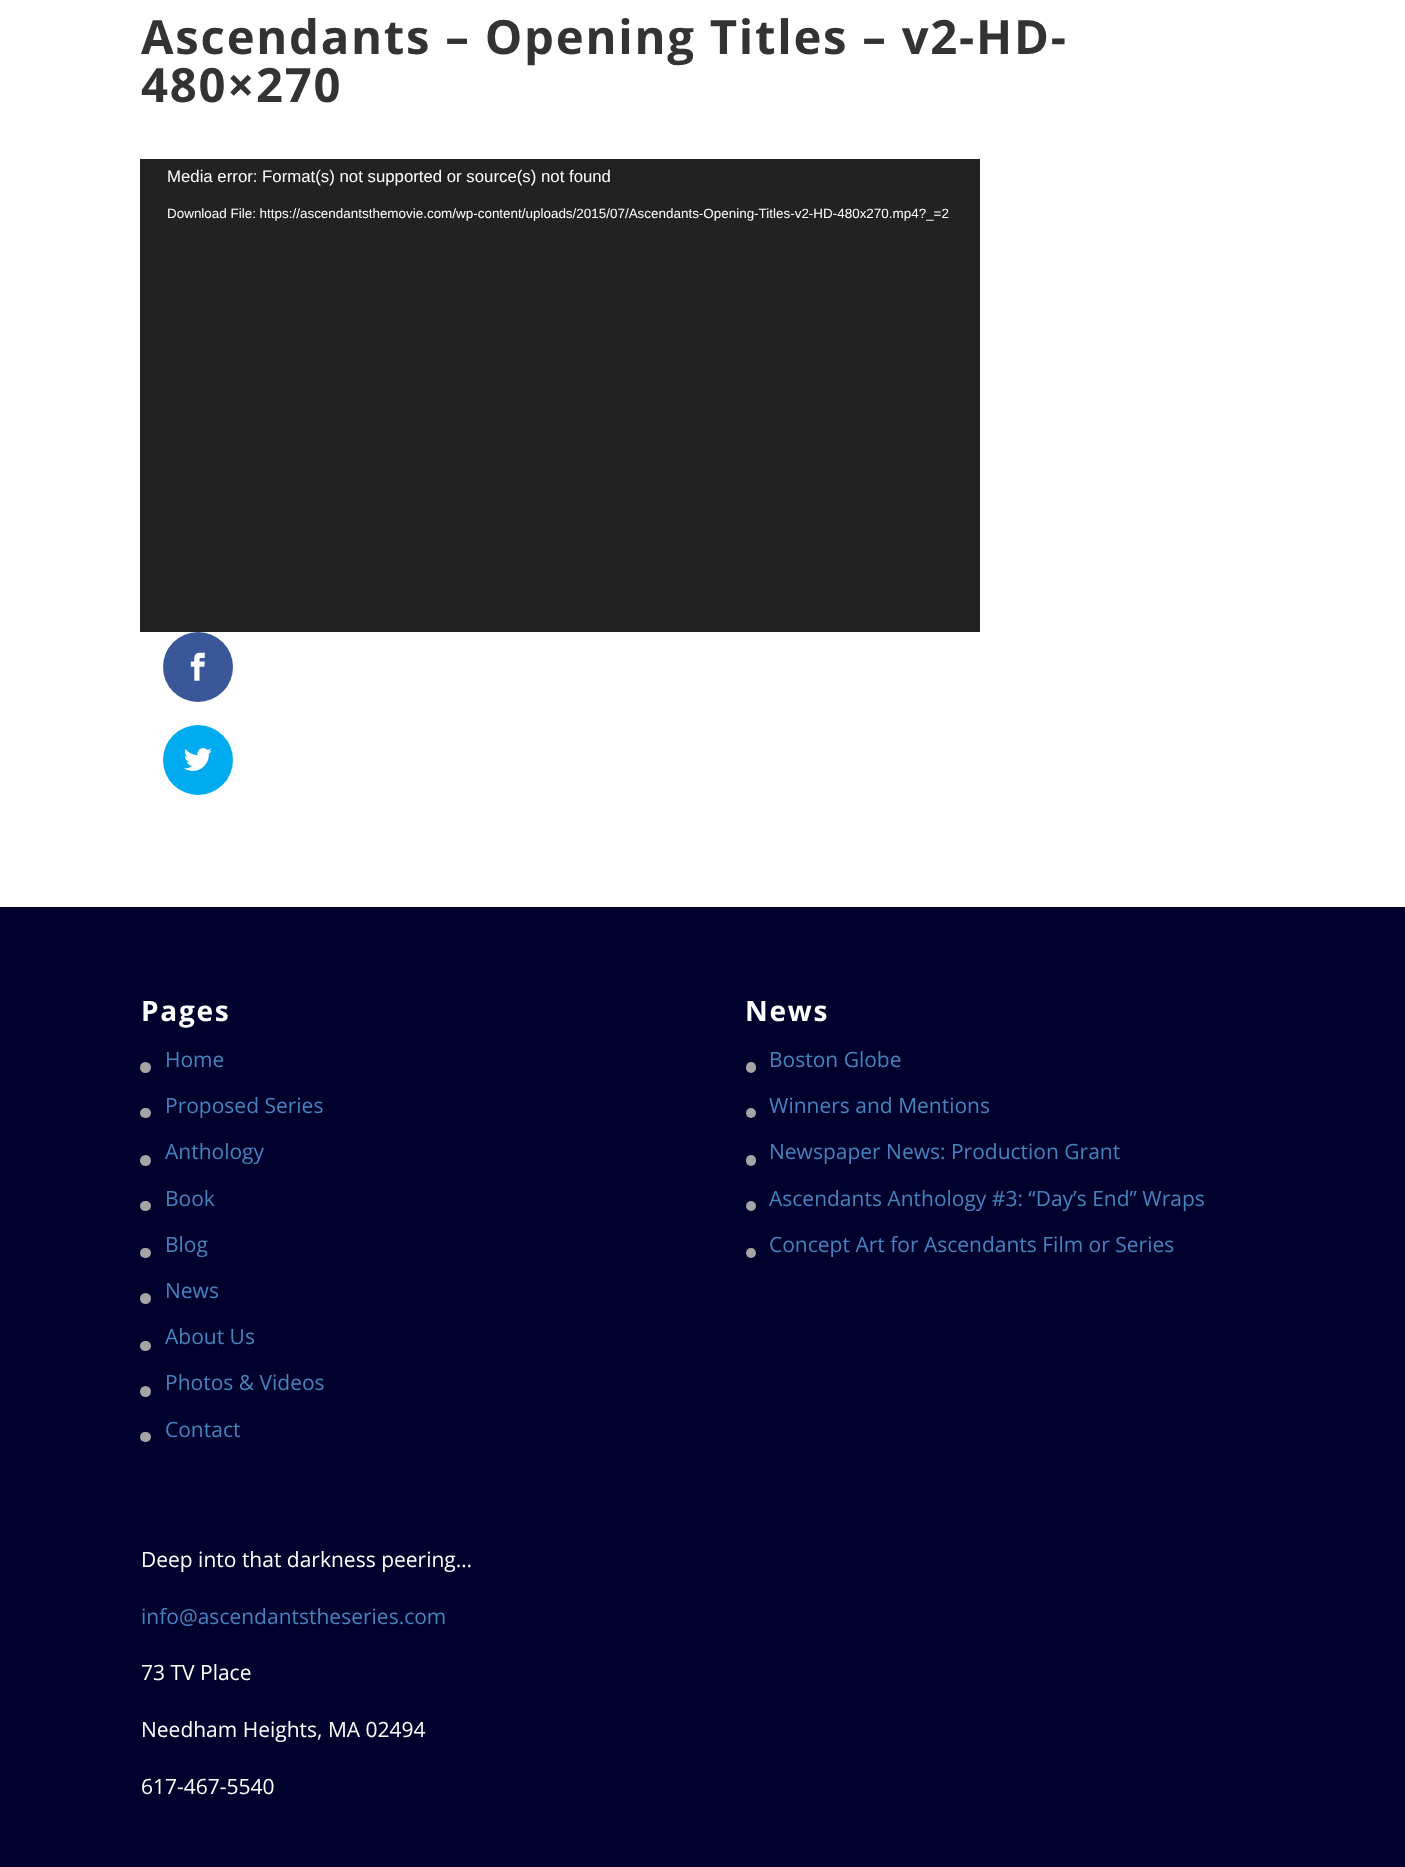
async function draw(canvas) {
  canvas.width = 1405;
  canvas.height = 1867;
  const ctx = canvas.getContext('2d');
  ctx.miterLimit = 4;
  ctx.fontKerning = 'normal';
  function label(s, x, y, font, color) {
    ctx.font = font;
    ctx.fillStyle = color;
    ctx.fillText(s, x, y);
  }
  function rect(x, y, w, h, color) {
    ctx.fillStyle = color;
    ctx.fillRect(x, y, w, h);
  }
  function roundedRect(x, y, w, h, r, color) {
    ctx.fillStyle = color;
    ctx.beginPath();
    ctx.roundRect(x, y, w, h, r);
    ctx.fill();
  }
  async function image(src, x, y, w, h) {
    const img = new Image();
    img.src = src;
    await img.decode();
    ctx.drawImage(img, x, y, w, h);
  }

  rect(0, 0, 1405, 1867, '#fff');
  ctx.letterSpacing = '1.75px';
  label('Ascendants – Opening Titles – v2-HD-', 141, 54, 'bold 47.25px Open Sans', '#333');
  label('480×270', 141, 102, 'bold 47.25px Open Sans', '#333');
  rect(140, 159, 840, 473, '#222');
  ctx.letterSpacing = '0px';
  label('Media error: Format(s) not supported or source(s) not found', 167, 182, '16.8px Liberation Sans', '#fff');
  label('Download File: https://ascendantsthemovie.com/wp-content/uploads/2015/07/Ascendants-Opening-Titles-v2-HD-480x270.mp4?_=2', 167, 218, '13.45px Liberation Sans', '#fff');
  ctx.fillStyle = '#3a579a';
  ctx.beginPath();
  ctx.arc(198, 667, 35, 0, 2 * Math.PI);
  ctx.fill();
  await image('assets/img1.png', 190, 652, 15, 29);
  ctx.fillStyle = '#00abf0';
  ctx.beginPath();
  ctx.arc(198, 760, 35, 0, 2 * Math.PI);
  ctx.fill();
  await image('assets/img2.png', 184, 748, 28, 23);
  rect(0, 907, 1405, 960, '#00002d');
  ctx.letterSpacing = '1.75px';
  label('Pages', 141, 1021, 'bold 28px Open Sans', '#fff');
  ctx.fillStyle = '#a5a5a5';
  ctx.beginPath();
  ctx.arc(145.5, 1067.5, 5.5, 0, 2 * Math.PI);
  ctx.fill();
  ctx.letterSpacing = '0px';
  label('Home', 165, 1067, '21px Open Sans', '#4683bf');
  roundedRect(140, 1108, 11, 10, 5, '#a5a5a5');
  label('Proposed Series', 165, 1113, '21px Open Sans', '#4683bf');
  ctx.fillStyle = '#a5a5a5';
  ctx.beginPath();
  ctx.arc(145.5, 1160.5, 5.5, 0, 2 * Math.PI);
  ctx.fill();
  label('Anthology', 165, 1159, '21px Open Sans', '#4683bf');
  roundedRect(140, 1201, 11, 10, 5, '#a5a5a5');
  label('Book', 165, 1206, '21px Open Sans', '#4683bf');
  roundedRect(140, 1248, 11, 10, 5, '#a5a5a5');
  label('Blog', 165, 1252, '21px Open Sans', '#4683bf');
  ctx.fillStyle = '#a5a5a5';
  ctx.beginPath();
  ctx.arc(145.5, 1298.5, 5.5, 0, 2 * Math.PI);
  ctx.fill();
  label('News', 165, 1298, '21px Open Sans', '#4683bf');
  label('About Us', 165, 1344, '21px Open Sans', '#4683bf');
  roundedRect(140, 1341, 11, 10, 5, '#a5a5a5');
  ctx.beginPath();
  ctx.arc(145.5, 1391.5, 5.5, 0, 2 * Math.PI);
  ctx.fill();
  label('Photos & Videos', 165, 1390, '21px Open Sans', '#4683bf');
  roundedRect(140, 1432, 11, 10, 5, '#a5a5a5');
  label('Contact', 165, 1437, '21px Open Sans', '#4683bf');
  ctx.letterSpacing = '1.75px';
  label('News', 745, 1021, 'bold 28px Open Sans', '#fff');
  roundedRect(746, 1062, 10, 11, 5, '#a5a5a5');
  ctx.letterSpacing = '0px';
  label('Boston Globe', 769, 1067, '21px Open Sans', '#4683bf');
  ctx.fillStyle = '#a5a5a5';
  ctx.beginPath();
  ctx.arc(751, 1113, 5, 0, 2 * Math.PI);
  ctx.fill();
  label('Winners and Mentions', 769, 1113, '21px Open Sans', '#4683bf');
  roundedRect(746, 1155, 10, 11, 5, '#a5a5a5');
  label('Newspaper News: Production Grant', 769, 1159, '21px Open Sans', '#4683bf');
  ctx.fillStyle = '#a5a5a5';
  ctx.beginPath();
  ctx.arc(751, 1206, 5, 0, 2 * Math.PI);
  ctx.fill();
  label('Ascendants Anthology #3: “Day’s End” Wraps', 769, 1206, '21px Open Sans', '#4683bf');
  ctx.fillStyle = '#a5a5a5';
  ctx.beginPath();
  ctx.arc(751, 1253, 5, 0, 2 * Math.PI);
  ctx.fill();
  label('Concept Art for Ascendants Film or Series', 769, 1252, '21px Open Sans', '#4683bf');
  label('Deep into that darkness peering…', 141, 1567, '21px Open Sans', '#fff');
  label('info@ascendantstheseries.com', 141, 1624, '21px Open Sans', '#4683bf');
  label('73 TV Place', 141, 1680, '21px Open Sans', '#fff');
  label('Needham Heights, MA 02494', 141, 1737, '21px Open Sans', '#fff');
  label('617-467-5540', 141, 1794, '21px Open Sans', '#fff');
}

draw(document.querySelector('canvas'));
